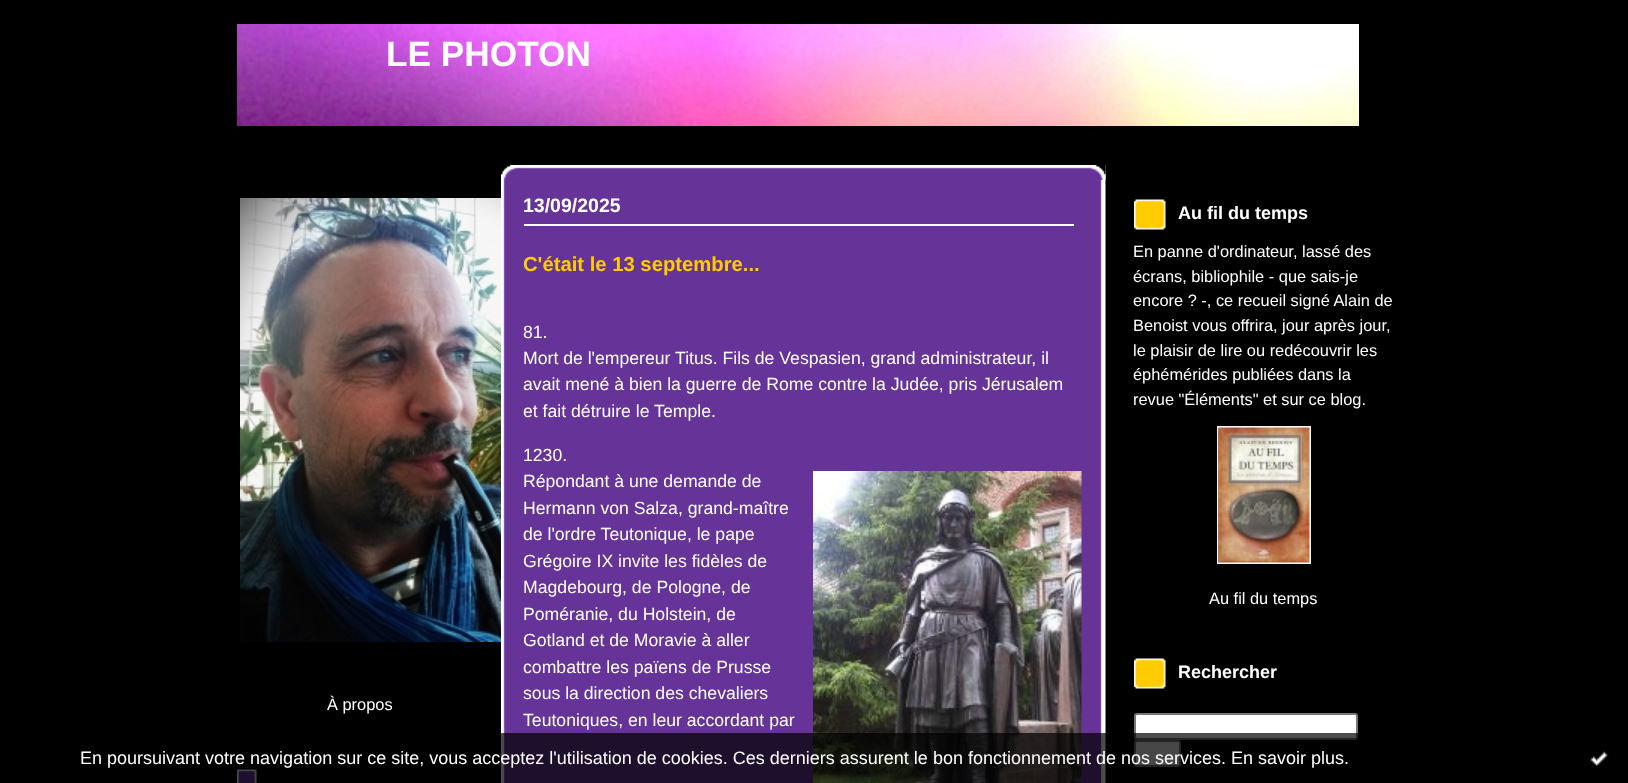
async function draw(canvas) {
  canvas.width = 1628;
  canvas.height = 783;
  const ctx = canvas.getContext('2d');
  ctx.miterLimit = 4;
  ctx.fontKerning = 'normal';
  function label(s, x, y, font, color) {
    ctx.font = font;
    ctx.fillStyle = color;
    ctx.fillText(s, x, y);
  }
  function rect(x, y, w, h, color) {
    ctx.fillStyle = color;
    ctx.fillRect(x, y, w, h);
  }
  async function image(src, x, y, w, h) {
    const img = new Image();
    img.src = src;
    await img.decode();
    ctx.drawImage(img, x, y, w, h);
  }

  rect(0, 0, 1628, 783, '#000');
  await image('assets/img1.png', 237, 24, 1122, 102);
  label('LE PHOTON', 386, 66, 'bold 35.25px Liberation Sans', '#fff');
  await image('assets/img2.png', 501, 165, 605, 618);
  await image('assets/img3.png', 501, 165, 605, 15);
  rect(524, 224, 550, 2, '#fff');
  label('13/09/2025', 523, 212, 'bold 19.5px Liberation Sans', '#fff');
  label('C\'était le 13 septembre...', 523, 271, 'bold 20.25px Liberation Sans', '#fc0');
  label('81.', 523, 338, '17.65px Liberation Sans', '#fff');
  label('Mort de l\'empereur Titus. Fils de Vespasien, grand administrateur, il', 523, 364, '17.65px Liberation Sans', '#fff');
  label('avait mené à bien la guerre de Rome contre la Judée, pris Jérusalem', 523, 390, '17.65px Liberation Sans', '#fff');
  label('et fait détruire le Temple.', 523, 417, '17.65px Liberation Sans', '#fff');
  label('1230.', 523, 461, '17.65px Liberation Sans', '#fff');
  label('Répondant à une demande de', 523, 487, '17.65px Liberation Sans', '#fff');
  await image('assets/img4.png', 813, 471, 269, 312);
  label('Hermann von Salza, grand-maître', 523, 514, '17.65px Liberation Sans', '#fff');
  label('de l\'ordre Teutonique, le pape', 523, 540, '17.65px Liberation Sans', '#fff');
  label('Grégoire IX invite les fidèles de', 523, 567, '17.65px Liberation Sans', '#fff');
  label('Magdebourg, de Pologne, de', 523, 593, '17.65px Liberation Sans', '#fff');
  label('Poméranie, du Holstein, de', 523, 620, '17.65px Liberation Sans', '#fff');
  label('Gotland et de Moravie à aller', 523, 646, '17.65px Liberation Sans', '#fff');
  label('combattre les païens de Prusse', 523, 673, '17.65px Liberation Sans', '#fff');
  label('sous la direction des chevaliers', 523, 699, '17.65px Liberation Sans', '#fff');
  label('Teutoniques, en leur accordant par', 523, 726, '17.65px Liberation Sans', '#fff');
  await image('assets/img5.png', 1134, 199, 32, 31);
  label('Au fil du temps', 1178, 219, 'bold 18px Liberation Sans', '#fff');
  label('En panne d\'ordinateur, lassé des', 1133, 257, '16.4px Liberation Sans', '#fff');
  label('écrans, bibliophile - que sais-je', 1133, 282, '16.4px Liberation Sans', '#fff');
  label('encore ? -, ce recueil signé Alain de', 1133, 306, '16.4px Liberation Sans', '#fff');
  label('Benoist vous offrira, jour après jour,', 1133, 331, '16.4px Liberation Sans', '#fff');
  label('le plaisir de lire ou redécouvrir les', 1133, 356, '16.4px Liberation Sans', '#fff');
  label('éphémérides publiées dans la', 1133, 380, '16.4px Liberation Sans', '#fff');
  label('revue "Éléments" et sur ce blog.', 1133, 405, '16.4px Liberation Sans', '#fff');
  ctx.strokeStyle = '#fff';
  ctx.lineWidth = 2;
  ctx.strokeRect(1218, 427, 92, 136);
  await image('assets/img6.png', 1218, 427, 92, 136);
  label('Au fil du temps', 1209, 604, '16.4px Liberation Sans', '#fff');
  await image('assets/img5.png', 1134, 658, 32, 31);
  label('Rechercher', 1178, 678, 'bold 18px Liberation Sans', '#fff');
  ctx.beginPath();
  ctx.roundRect(1135, 714, 222, 25, 2);
  ctx.fill();
  ctx.strokeStyle = '#767676';
  ctx.stroke();
  ctx.fillStyle = '#efefef';
  ctx.beginPath();
  ctx.roundRect(1135, 741, 45, 25, 2);
  ctx.fill();
  ctx.stroke();
  await image('assets/img7.png', 240, 198, 261, 444);
  label('À propos', 327, 710, '16.4px Liberation Sans', '#fff');
  await image('assets/img8.png', 237, 769, 20, 14);
  rect(237, 733, 1121, 50, '#000000b3');
  label('En poursuivant votre navigation sur ce site, vous acceptez l\'utilisation de cookies. Ces derniers assurent le bon fonctionnement de nos services. En savoir plus.', 80, 764, '18px Liberation Sans', '#fff');
  await image('assets/img9.png', 1590, 751, 19, 15);
}

draw(document.querySelector('canvas'));
